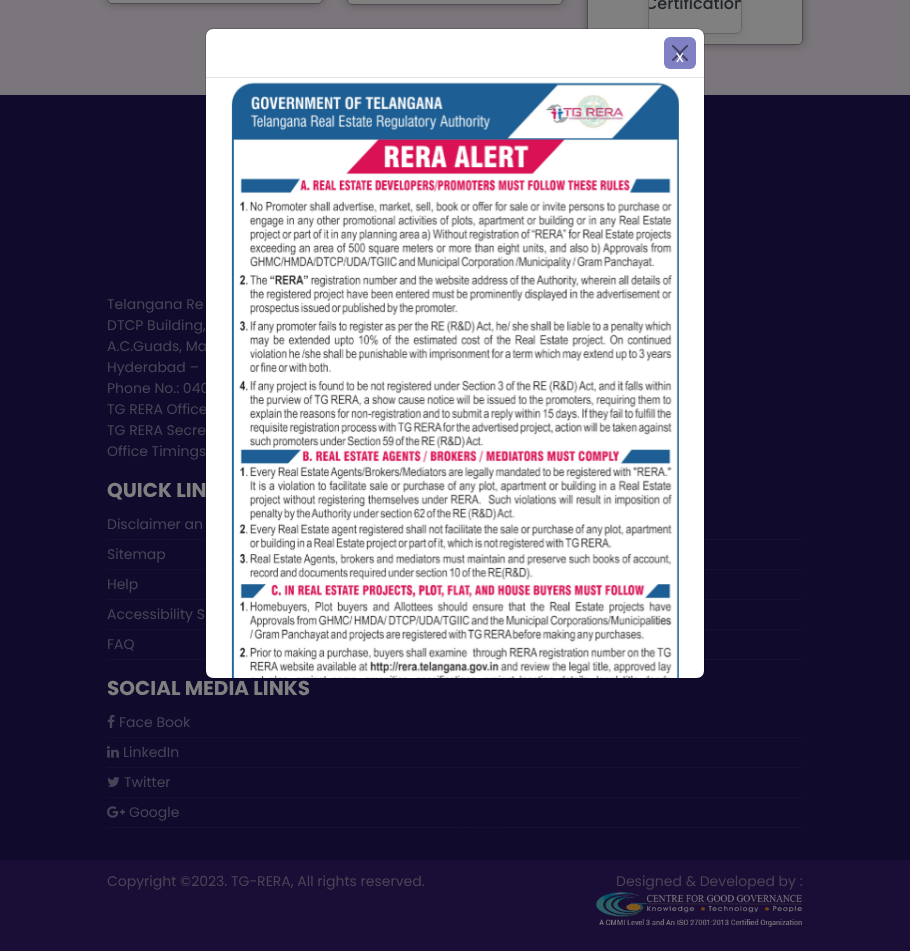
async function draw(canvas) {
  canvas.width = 910;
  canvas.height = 951;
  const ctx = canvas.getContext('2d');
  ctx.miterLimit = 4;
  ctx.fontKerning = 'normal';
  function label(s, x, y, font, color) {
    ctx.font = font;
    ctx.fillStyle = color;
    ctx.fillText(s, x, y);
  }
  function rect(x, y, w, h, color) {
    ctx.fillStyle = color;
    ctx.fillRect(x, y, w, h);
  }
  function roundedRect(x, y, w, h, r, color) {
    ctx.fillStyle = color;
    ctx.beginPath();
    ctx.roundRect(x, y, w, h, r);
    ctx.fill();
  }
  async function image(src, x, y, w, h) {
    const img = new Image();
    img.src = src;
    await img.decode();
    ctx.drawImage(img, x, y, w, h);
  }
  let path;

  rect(0, 0, 910, 951, '#7b767b');
  ctx.fillStyle = '#0000004d';
  ctx.filter = 'blur(5px)';
  ctx.beginPath();
  ctx.roundRect(107, -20, 216, 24, 5);
  ctx.fill();
  ctx.filter = 'none';
  ctx.fillStyle = '#808080';
  path = new Path2D('M107-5H323V-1C323 2 321 4 318 4H112C109 4 107 2 107-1Z');
  ctx.fill(path);
  path = new Path2D('M107.5-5.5H322.5V-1C322.5 1.5 320.5 3.5 318 3.5H112C109.5 3.5 107.5 1.5 107.5-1Z');
  ctx.strokeStyle = '#00000066';
  ctx.stroke(path);
  ctx.fillStyle = '#0000004d';
  ctx.filter = 'blur(5px)';
  ctx.beginPath();
  ctx.roundRect(347, -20, 216, 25, 5);
  ctx.fill();
  ctx.filter = 'none';
  ctx.fillStyle = '#808080';
  path = new Path2D('M347-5H563V0C563 3 561 5 558 5H352C349 5 347 3 347 0Z');
  ctx.fill(path);
  path = new Path2D('M347.5-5.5H562.5V0C562.5 2.5 560.5 4.5 558 4.5H352C349.5 4.5 347.5 2.5 347.5 0Z');
  ctx.stroke(path);
  ctx.fillStyle = '#0000004d';
  ctx.filter = 'blur(5px)';
  ctx.beginPath();
  ctx.roundRect(587, -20, 216, 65, 5);
  ctx.fill();
  ctx.filter = 'none';
  ctx.fillStyle = '#808080';
  path = new Path2D('M587-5H803V40C803 43 801 45 798 45H592C589 45 587 43 587 40Z');
  ctx.fill(path);
  path = new Path2D('M587.5-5.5H802.5V40C802.5 42.5 800.5 44.5 798 44.5H592C589.5 44.5 587.5 42.5 587.5 40Z');
  ctx.stroke(path);
  ctx.fillStyle = '#1d1b211a';
  ctx.filter = 'blur(5px)';
  ctx.beginPath();
  ctx.roundRect(648, -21, 94, 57, 6);
  ctx.fill();
  ctx.filter = 'none';
  ctx.fillStyle = '#808080';
  ctx.beginPath();
  ctx.roundRect(648.5, -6.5, 93, 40, 5.5);
  ctx.fill();
  ctx.strokeStyle = '#666';
  ctx.stroke();
  ctx.save();
  ctx.beginPath();
  ctx.roundRect(649, -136, 92, 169, 5);
  ctx.clip();
  label('Certification', 645, 9, '500 16px Poppins', '#21262a');
  ctx.restore();
  rect(0, 95, 910, 765, '#100a2d');
  label('A.C.Guads, Ma', 107, 351, '14px Poppins', '#484556');
  label('Phone No.: 040', 107, 393, '14px Poppins', '#484556');
  label('TG RERA Office', 107, 414, '14px Poppins', '#484556');
  path = new Path2D('M107 539.5H803');
  ctx.strokeStyle = '#1b1635';
  ctx.setLineDash([1, 1]);
  ctx.stroke(path);
  path = new Path2D('M107 569.5H803');
  ctx.stroke(path);
  path = new Path2D('M107 599.5H803');
  ctx.stroke(path);
  path = new Path2D('M107 629.5H803');
  ctx.stroke(path);
  path = new Path2D('M107 659.5H803');
  ctx.stroke(path);
  roundedRect(206, 29, 498, 649, 7, '#fff');
  label('DTCP Building,', 107, 330, '14px Poppins', '#484556');
  label('TG RERA Secre', 107, 435, '14px Poppins', '#484556');
  label('Office Timings', 107, 456, '14px Poppins', '#484556');
  label('QUICK LIN', 107, 497, 'bold 20px Poppins', '#808080');
  ctx.beginPath();
  ctx.roundRect(205.5, 28.5, 499, 650, 7.5);
  ctx.strokeStyle = '#0000002e';
  ctx.setLineDash([]);
  ctx.stroke();
  rect(206, 77, 498, 1, '#dee2e6');
  roundedRect(664, 37, 32, 32, 6, '#8080c5');
  await image('assets/img1.png', 672, 45, 16, 16);
  label('x', 676, 62, '16px Poppins', '#fff');
  await image('assets/img2.png', 231, 78, 448, 600);
  label('Telangana Re', 107, 309, '14px Poppins', '#484556');
  label('Hyderabad –', 107, 372, '14px Poppins', '#484556');
  label('Disclaimer an', 107, 529, '14px Poppins', '#484556');
  label('Sitemap', 107, 559, '14px Poppins', '#484556');
  label('Help', 107, 589, '14px Poppins', '#484556');
  label('Accessibility S', 107, 619, '14px Poppins', '#484556');
  label('FAQ', 107, 649, '14px Poppins', '#484556');
  label('SOCIAL MEDIA LINKS', 107, 695, 'bold 20px Poppins', '#808080');
  path = new Path2D('M107 737.5H803');
  ctx.strokeStyle = '#1b1635';
  ctx.setLineDash([1, 1]);
  ctx.stroke(path);
  await image('assets/img3.png', 107, 715, 8, 13);
  label('Face Book', 119, 727, '14px Poppins', '#484556');
  path = new Path2D('M107 767.5H803');
  ctx.stroke(path);
  await image('assets/img4.png', 107, 746, 12, 12);
  label('LinkedIn', 123, 757, '14px Poppins', '#484556');
  path = new Path2D('M107 797.5H803');
  ctx.stroke(path);
  await image('assets/img5.png', 107, 777, 13, 10);
  label('Twitter', 124, 787, '14px Poppins', '#484556');
  path = new Path2D('M107 827.5H803');
  ctx.stroke(path);
  await image('assets/img6.png', 107, 806, 18, 12);
  label('Google', 129, 817, '14px Poppins', '#484556');
  rect(0, 860, 910, 91, '#1a0e36');
  label('Copyright ©2023. TG-RERA, All rights reserved.', 107, 886, '14px Poppins', '#484556');
  label('Designed & Developed by :', 616, 886, '14px Poppins', '#484556');
  await image('assets/img7.png', 596, 892, 207, 35);
}

draw(document.querySelector('canvas'));
